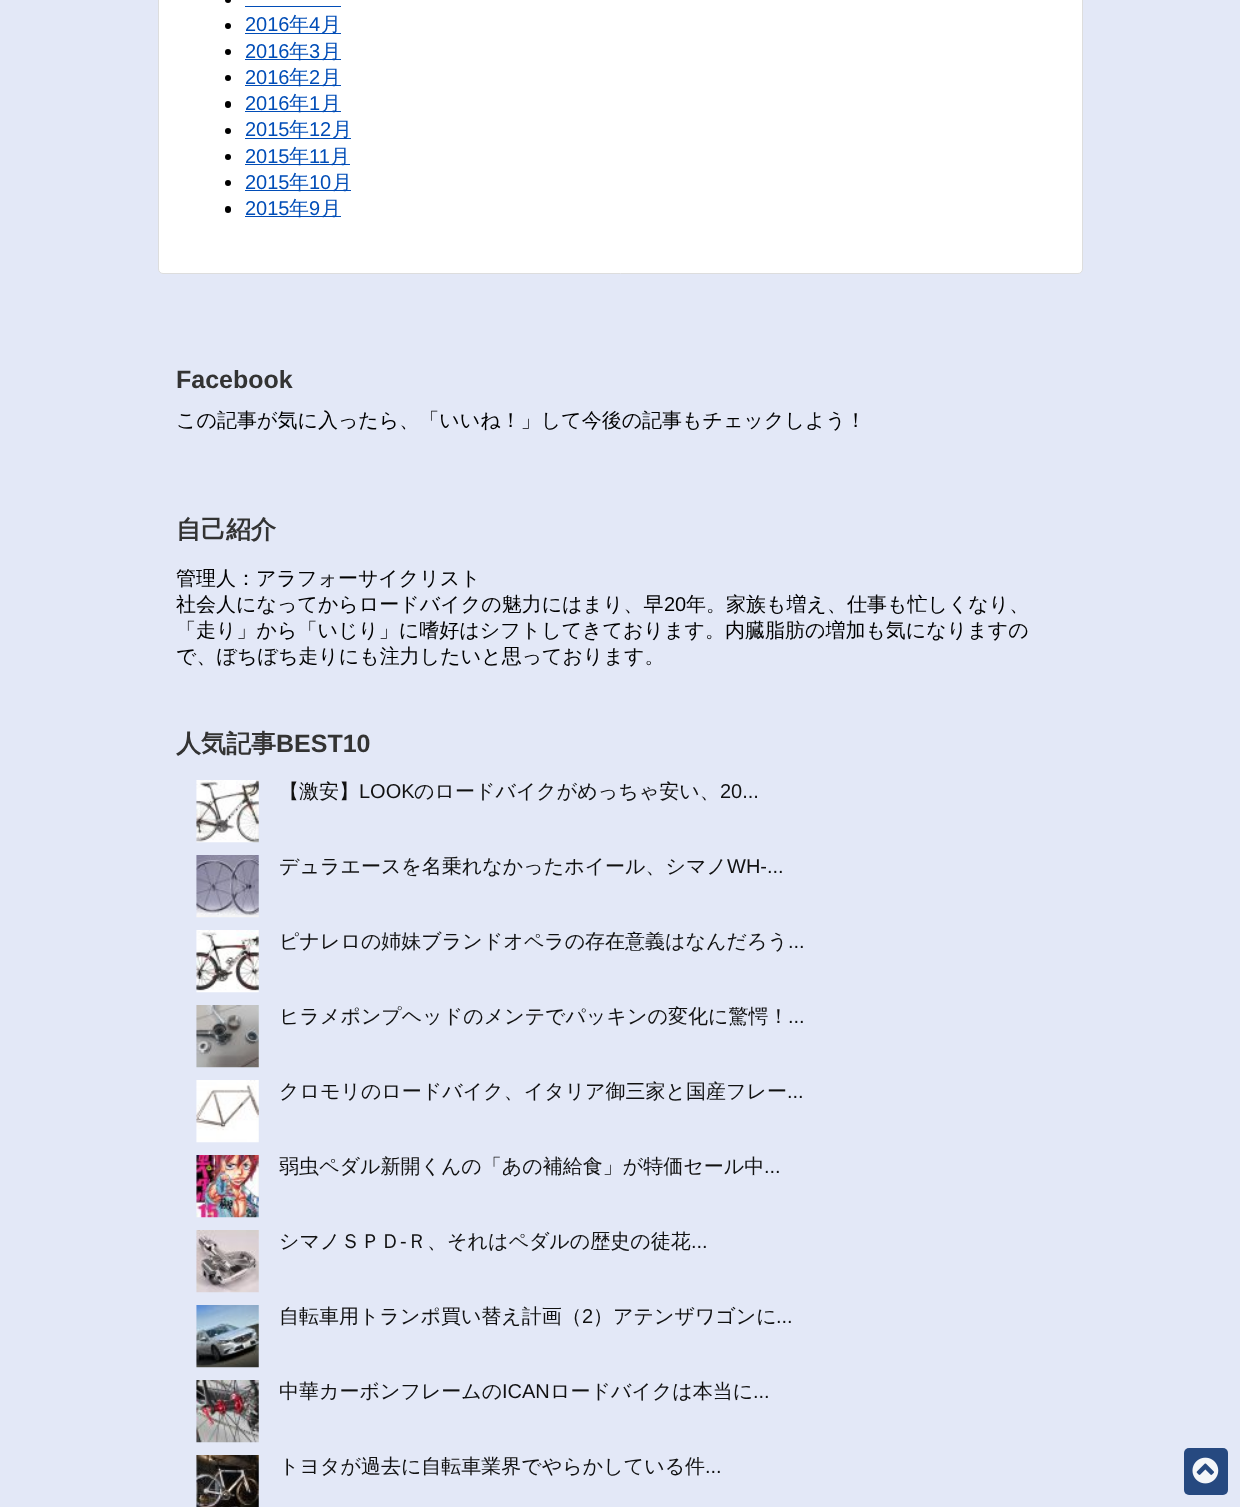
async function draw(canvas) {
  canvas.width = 1240;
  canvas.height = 1507;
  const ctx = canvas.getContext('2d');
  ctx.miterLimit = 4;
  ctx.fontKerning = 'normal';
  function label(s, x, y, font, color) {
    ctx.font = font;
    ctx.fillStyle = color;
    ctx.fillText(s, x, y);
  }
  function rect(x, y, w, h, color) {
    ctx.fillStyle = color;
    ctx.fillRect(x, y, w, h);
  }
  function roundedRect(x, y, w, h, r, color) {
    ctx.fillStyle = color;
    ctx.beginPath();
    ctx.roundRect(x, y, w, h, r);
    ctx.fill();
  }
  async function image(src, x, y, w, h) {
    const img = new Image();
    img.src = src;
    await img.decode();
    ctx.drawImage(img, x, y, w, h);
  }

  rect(0, 0, 1240, 1507, '#e3e8f7');
  ctx.fillStyle = '#fff';
  ctx.beginPath();
  ctx.roundRect(158.5, -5.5, 924, 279, 4.5);
  ctx.fill();
  ctx.strokeStyle = '#ddd';
  ctx.stroke();
  ctx.fillStyle = '#000';
  ctx.beginPath();
  ctx.arc(228, 0, 3, 0, 2 * Math.PI);
  ctx.fill();
  rect(245, 6, 96, 1, '#014db7');
  ctx.fillStyle = '#000';
  ctx.beginPath();
  ctx.arc(228, 26, 3, 0, 2 * Math.PI);
  ctx.fill();
  label('2016', 245, 31, '20px Liberation Sans', '#014db7');
  rect(245, 33, 96, 1, '#014db7');
  label('年', 289, 31, '500 20px WenQuanYi Zen Hei', '#014db7');
  label('4', 309, 31, '20px Liberation Sans', '#014db7');
  label('月', 321, 31, '500 20px WenQuanYi Zen Hei', '#014db7');
  ctx.fillStyle = '#000';
  ctx.beginPath();
  ctx.arc(228, 52, 3, 0, 2 * Math.PI);
  ctx.fill();
  label('2016', 245, 58, '20px Liberation Sans', '#014db7');
  rect(245, 59, 96, 1, '#014db7');
  label('年', 289, 58, '500 20px WenQuanYi Zen Hei', '#014db7');
  label('3', 309, 58, '20px Liberation Sans', '#014db7');
  label('月', 321, 58, '500 20px WenQuanYi Zen Hei', '#014db7');
  ctx.fillStyle = '#000';
  ctx.beginPath();
  ctx.arc(228, 78, 3, 0, 2 * Math.PI);
  ctx.fill();
  label('2016', 245, 84, '20px Liberation Sans', '#014db7');
  rect(245, 85, 96, 1, '#014db7');
  label('年', 289, 84, '500 20px WenQuanYi Zen Hei', '#014db7');
  label('2', 309, 84, '20px Liberation Sans', '#014db7');
  label('月', 321, 84, '500 20px WenQuanYi Zen Hei', '#014db7');
  roundedRect(225, 101, 6, 7, 3, '#000');
  label('2016', 245, 110, '20px Liberation Sans', '#014db7');
  rect(245, 111, 96, 1, '#014db7');
  label('年', 289, 110, '500 20px WenQuanYi Zen Hei', '#014db7');
  label('1', 309, 110, '20px Liberation Sans', '#014db7');
  label('月', 321, 110, '500 20px WenQuanYi Zen Hei', '#014db7');
  ctx.fillStyle = '#000';
  ctx.beginPath();
  ctx.arc(228, 131, 3, 0, 2 * Math.PI);
  ctx.fill();
  label('2015', 245, 136, '20px Liberation Sans', '#014db7');
  rect(245, 138, 106, 1, '#014db7');
  label('年', 289, 136, '500 20px WenQuanYi Zen Hei', '#014db7');
  label('12', 309, 136, '20px Liberation Sans', '#014db7');
  label('月', 332, 136, '500 20px WenQuanYi Zen Hei', '#014db7');
  ctx.fillStyle = '#000';
  ctx.beginPath();
  ctx.arc(228, 157, 3, 0, 2 * Math.PI);
  ctx.fill();
  label('2015', 245, 163, '20px Liberation Sans', '#014db7');
  rect(245, 164, 105, 1, '#014db7');
  label('年', 289, 163, '500 20px WenQuanYi Zen Hei', '#014db7');
  label('11', 309, 163, '20px Liberation Sans', '#014db7');
  label('月', 330, 163, '500 20px WenQuanYi Zen Hei', '#014db7');
  ctx.fillStyle = '#000';
  ctx.beginPath();
  ctx.arc(228, 183, 3, 0, 2 * Math.PI);
  ctx.fill();
  label('2015', 245, 189, '20px Liberation Sans', '#014db7');
  rect(245, 190, 106, 1, '#014db7');
  label('年', 289, 189, '500 20px WenQuanYi Zen Hei', '#014db7');
  label('10', 309, 189, '20px Liberation Sans', '#014db7');
  label('月', 332, 189, '500 20px WenQuanYi Zen Hei', '#014db7');
  roundedRect(225, 206, 6, 7, 3, '#000');
  label('2015', 245, 215, '20px Liberation Sans', '#014db7');
  rect(245, 216, 96, 1, '#014db7');
  label('年', 289, 215, '500 20px WenQuanYi Zen Hei', '#014db7');
  label('9', 309, 215, '20px Liberation Sans', '#014db7');
  label('月', 321, 215, '500 20px WenQuanYi Zen Hei', '#014db7');
  label('Facebook', 176, 388, 'bold 25px Liberation Sans', '#333');
  label('この記事が気に入ったら、「いいね！」して今後の記事もチェックしよう！', 176, 427, '500 20px WenQuanYi Zen Hei', '#000');
  label('自己紹介', 176, 538, 'bold 25px WenQuanYi Zen Hei', '#333');
  label('管理人：アラフォーサイクリスト', 176, 585, '500 20px WenQuanYi Zen Hei', '#000');
  label('社会人になってからロードバイクの魅力にはまり、早', 176, 611, '500 20px WenQuanYi Zen Hei', '#000');
  label('20', 664, 611, '20px Liberation Sans', '#000');
  label('年。家族も増え、仕事も忙しくなり、', 686, 611, '500 20px WenQuanYi Zen Hei', '#000');
  label('「走り」から「いじり」に嗜好はシフトしてきております。内臓脂肪の増加も気になりますの', 176, 637, '500 20px WenQuanYi Zen Hei', '#000');
  label('で、ぼちぼち走りにも注力したいと思っております。', 176, 663, '500 20px WenQuanYi Zen Hei', '#000');
  label('人気記事', 176, 752, 'bold 25px WenQuanYi Zen Hei', '#333');
  label('BEST10', 276, 752, 'bold 25px Liberation Sans', '#333');
  await image('assets/img1.png', 196, 780, 63, 63);
  label('【激安】', 279, 798, '500 20px WenQuanYi Zen Hei', '#111');
  label('LOOK', 359, 798, '20px Liberation Sans', '#111');
  label('のロードバイクがめっちゃ安い、', 414, 798, '500 20px WenQuanYi Zen Hei', '#111');
  label('20...', 720, 798, '20px Liberation Sans', '#111');
  await image('assets/img2.png', 196, 855, 63, 63);
  label('デュラエースを名乗れなかったホイール、シマノ', 279, 873, '500 20px WenQuanYi Zen Hei', '#111');
  label('WH-...', 727, 873, '20px Liberation Sans', '#111');
  await image('assets/img3.png', 196, 930, 63, 63);
  label('ピナレロの姉妹ブランドオペラの存在意義はなんだろう', 279, 948, '500 20px WenQuanYi Zen Hei', '#111');
  label('...', 788, 948, '20px Liberation Sans', '#111');
  await image('assets/img4.png', 196, 1005, 63, 63);
  label('ヒラメポンプヘッドのメンテでパッキンの変化に驚愕！', 279, 1023, '500 20px WenQuanYi Zen Hei', '#111');
  label('...', 788, 1023, '20px Liberation Sans', '#111');
  await image('assets/img5.png', 196, 1080, 63, 63);
  label('クロモリのロードバイク、イタリア御三家と国産フレー', 279, 1098, '500 20px WenQuanYi Zen Hei', '#111');
  label('...', 787, 1098, '20px Liberation Sans', '#111');
  await image('assets/img6.png', 196, 1155, 63, 63);
  label('弱虫ペダル新開くんの「あの補給食」が特価セール中', 279, 1173, '500 20px WenQuanYi Zen Hei', '#111');
  label('...', 764, 1173, '20px Liberation Sans', '#111');
  await image('assets/img7.png', 196, 1230, 63, 63);
  label('シマノＳＰＤ', 279, 1248, '500 20px WenQuanYi Zen Hei', '#111');
  label('-', 400, 1248, '20px Liberation Sans', '#111');
  label('Ｒ、それはペダルの歴史の徒花', 407, 1248, '500 20px WenQuanYi Zen Hei', '#111');
  label('...', 691, 1248, '20px Liberation Sans', '#111');
  await image('assets/img8.png', 196, 1305, 63, 63);
  label('自転車用トランポ買い替え計画（', 279, 1323, '500 20px WenQuanYi Zen Hei', '#111');
  label('2', 582, 1323, '20px Liberation Sans', '#111');
  label('）アテンザワゴンに', 593, 1323, '500 20px WenQuanYi Zen Hei', '#111');
  label('...', 776, 1323, '20px Liberation Sans', '#111');
  await image('assets/img9.png', 196, 1380, 63, 63);
  label('中華カーボンフレームの', 279, 1398, '500 20px WenQuanYi Zen Hei', '#111');
  label('ICAN', 502, 1398, '20px Liberation Sans', '#111');
  label('ロードバイクは本当に', 550, 1398, '500 20px WenQuanYi Zen Hei', '#111');
  label('...', 753, 1398, '20px Liberation Sans', '#111');
  await image('assets/img10.png', 196, 1455, 63, 52);
  label('トヨタが過去に自転車業界でやらかしている件', 279, 1473, '500 20px WenQuanYi Zen Hei', '#111');
  label('...', 705, 1473, '20px Liberation Sans', '#111');
  roundedRect(1184, 1448, 44, 47, 5, '#264980');
  await image('assets/img11.png', 1192, 1457, 27, 27);
}

draw(document.querySelector('canvas'));
